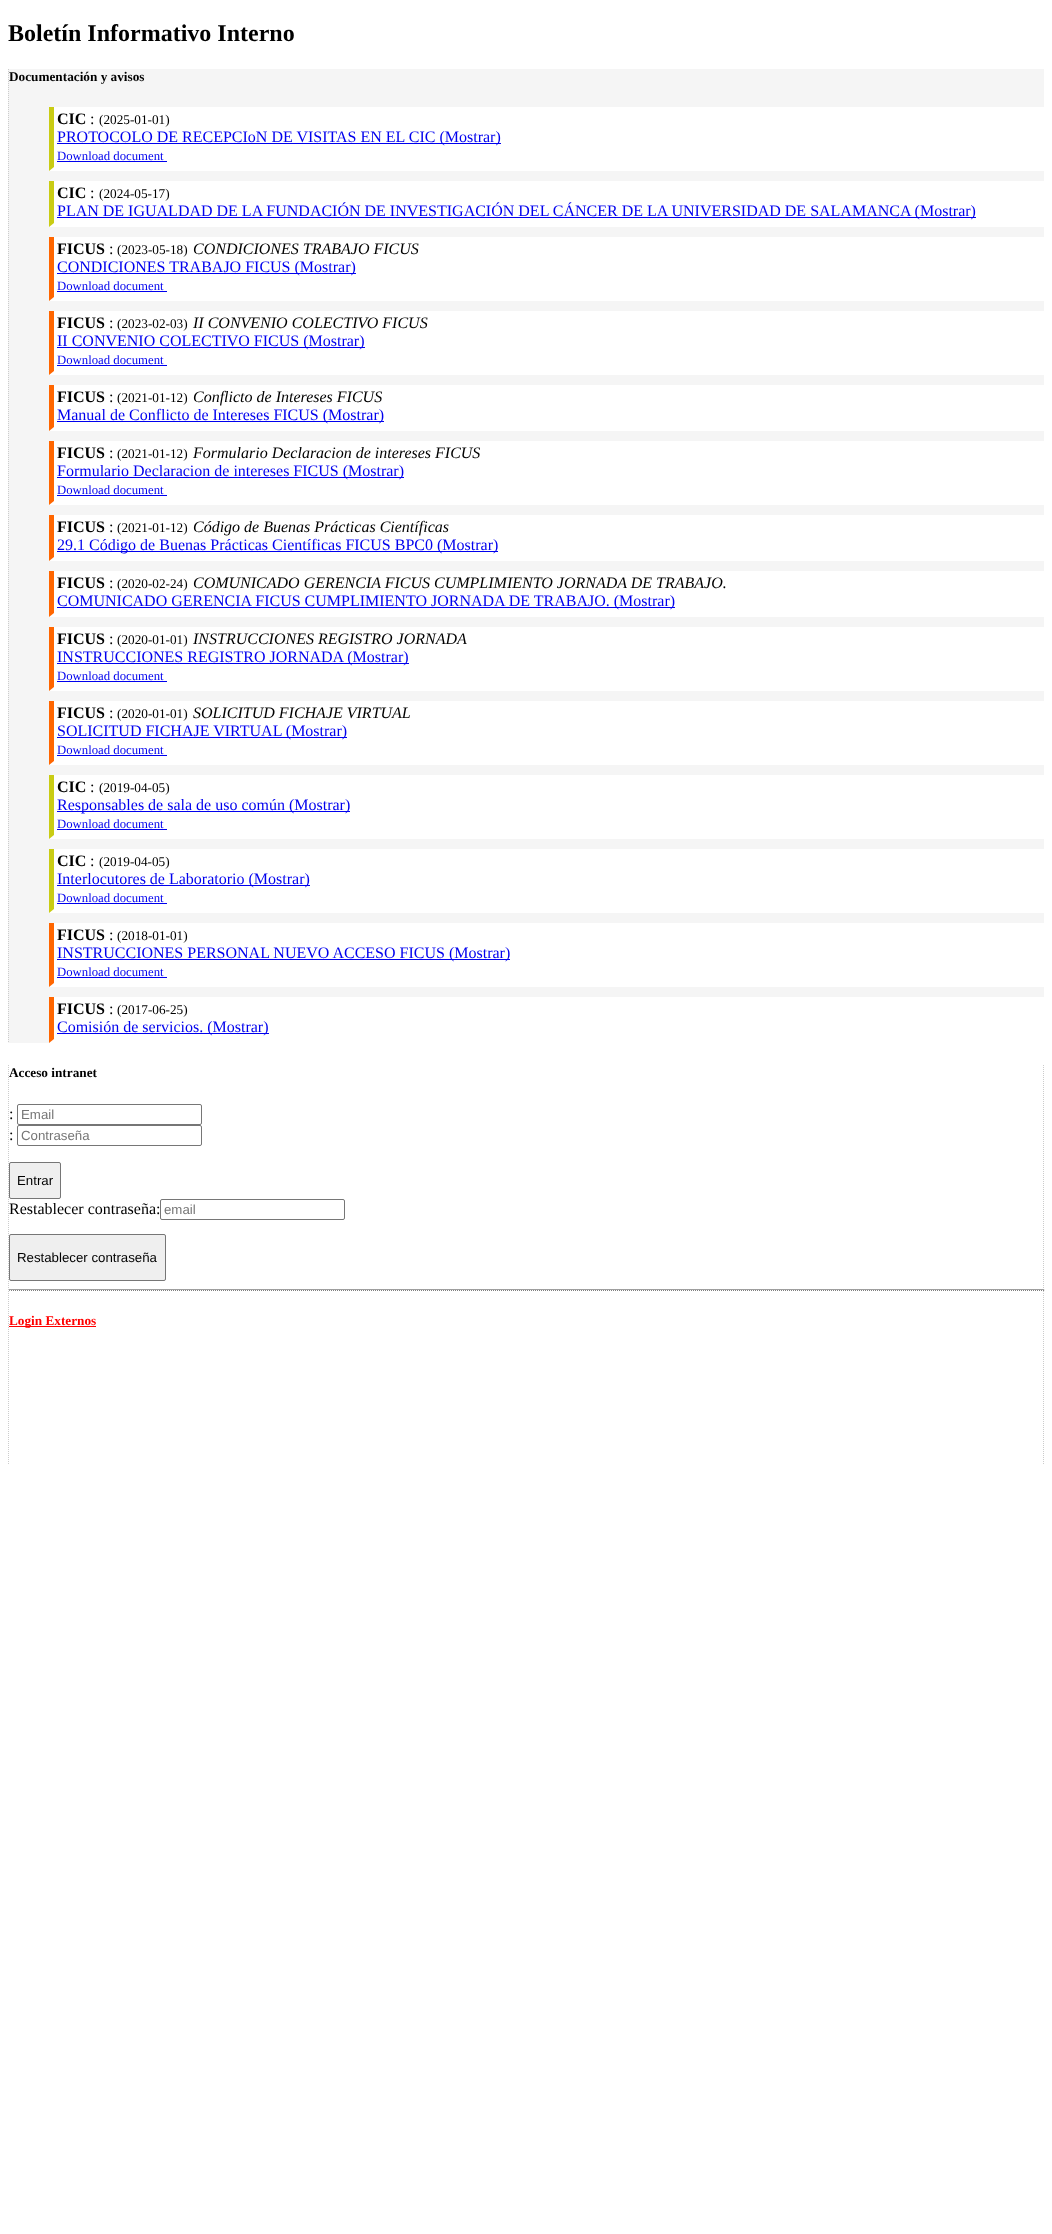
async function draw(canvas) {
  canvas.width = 1052;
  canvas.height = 2234;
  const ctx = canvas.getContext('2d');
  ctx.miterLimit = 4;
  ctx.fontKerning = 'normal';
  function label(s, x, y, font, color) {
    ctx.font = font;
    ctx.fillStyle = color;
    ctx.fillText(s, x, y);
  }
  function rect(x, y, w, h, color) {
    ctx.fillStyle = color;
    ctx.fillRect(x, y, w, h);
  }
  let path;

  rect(0, 0, 1052, 2234, '#fff');
  label('Boletín Informativo Interno', 8, 41, 'bold 24px Liberation Serif', '#000');
  rect(8, 69, 1036, 974, '#f5f5f5');
  path = new Path2D('M8.5 69V1043');
  ctx.strokeStyle = '#ccc';
  ctx.setLineDash([1, 1]);
  ctx.stroke(path);
  label('Documentación y avisos', 9, 81, 'bold 13.25px Liberation Serif', '#000');
  rect(49, 107, 995, 64, '#fff');
  ctx.fillStyle = '#c9cc14';
  path = new Path2D('M49 171V107H54V167Z');
  ctx.fill(path);
  label('CIC', 57, 124, 'bold 16px Liberation Serif', '#000');
  label(':', 90, 124, '16px Liberation Serif', '#000');
  label('(2025-01-01)', 99, 124, '13.25px Liberation Serif', '#000');
  rect(57, 143, 444, 1, '#00e');
  label('PROTOCOLO DE RECEPCIoN DE VISITAS EN EL CIC (Mostrar)', 57, 142, '16px Liberation Serif', '#00e');
  label('Download document', 57, 160, '12.75px Liberation Serif', '#00e');
  rect(57, 161, 110, 1, '#00e');
  rect(49, 181, 995, 46, '#fff');
  ctx.fillStyle = '#c9cc14';
  path = new Path2D('M49 227V181H54V223Z');
  ctx.fill(path);
  label('CIC', 57, 198, 'bold 16px Liberation Serif', '#000');
  label(':', 90, 198, '16px Liberation Serif', '#000');
  label('(2024-05-17)', 99, 198, '13.25px Liberation Serif', '#000');
  rect(57, 217, 919, 1, '#00e');
  label('PLAN DE IGUALDAD DE LA FUNDACIÓN DE INVESTIGACIÓN DEL CÁNCER DE LA UNIVERSIDAD DE SALAMANCA (Mostrar)', 57, 216, '16px Liberation Serif', '#00e');
  rect(49, 237, 995, 64, '#fff');
  ctx.fillStyle = '#f60';
  path = new Path2D('M49 301V237H54V297Z');
  ctx.fill(path);
  label('FICUS', 57, 254, 'bold 16px Liberation Serif', '#000');
  label(':', 109, 254, '16px Liberation Serif', '#000');
  label('(2023-05-18)', 117, 254, '13.25px Liberation Serif', '#000');
  label('CONDICIONES TRABAJO FICUS', 193, 254, 'italic 16px Liberation Serif', '#000');
  rect(57, 273, 299, 1, '#00e');
  label('CONDICIONES TRABAJO FICUS (Mostrar)', 57, 272, '16px Liberation Serif', '#00e');
  label('Download document', 57, 290, '12.75px Liberation Serif', '#00e');
  rect(57, 291, 110, 1, '#00e');
  rect(49, 311, 995, 64, '#fff');
  ctx.fillStyle = '#f60';
  path = new Path2D('M49 375V311H54V371Z');
  ctx.fill(path);
  label('FICUS', 57, 328, 'bold 16px Liberation Serif', '#000');
  label(':', 109, 328, '16px Liberation Serif', '#000');
  label('(2023-02-03)', 117, 328, '13.25px Liberation Serif', '#000');
  label('II CONVENIO COLECTIVO FICUS', 193, 328, 'italic 16px Liberation Serif', '#000');
  rect(57, 347, 308, 1, '#00e');
  label('II CONVENIO COLECTIVO FICUS (Mostrar)', 57, 346, '16px Liberation Serif', '#00e');
  label('Download document', 57, 364, '12.75px Liberation Serif', '#00e');
  rect(57, 365, 110, 1, '#00e');
  rect(49, 385, 995, 46, '#fff');
  ctx.fillStyle = '#f60';
  path = new Path2D('M49 431V385H54V427Z');
  ctx.fill(path);
  label('FICUS', 57, 402, 'bold 16px Liberation Serif', '#000');
  label(':', 109, 402, '16px Liberation Serif', '#000');
  label('(2021-01-12)', 117, 402, '13.25px Liberation Serif', '#000');
  label('Conflicto de Intereses FICUS', 193, 402, 'italic 16px Liberation Serif', '#000');
  rect(57, 421, 327, 1, '#00e');
  label('Manual de Conflicto de Intereses FICUS (Mostrar)', 57, 420, '16px Liberation Serif', '#00e');
  rect(49, 441, 995, 64, '#fff');
  ctx.fillStyle = '#f60';
  path = new Path2D('M49 505V441H54V501Z');
  ctx.fill(path);
  label('FICUS', 57, 458, 'bold 16px Liberation Serif', '#000');
  label(':', 109, 458, '16px Liberation Serif', '#000');
  label('(2021-01-12)', 117, 458, '13.25px Liberation Serif', '#000');
  label('Formulario Declaracion de intereses FICUS', 193, 458, 'italic 16px Liberation Serif', '#000');
  rect(57, 477, 347, 1, '#00e');
  label('Formulario Declaracion de intereses FICUS (Mostrar)', 57, 476, '16px Liberation Serif', '#00e');
  label('Download document', 57, 494, '12.75px Liberation Serif', '#00e');
  rect(57, 495, 110, 1, '#00e');
  rect(49, 515, 995, 46, '#fff');
  ctx.fillStyle = '#f60';
  path = new Path2D('M49 561V515H54V557Z');
  ctx.fill(path);
  label('FICUS', 57, 532, 'bold 16px Liberation Serif', '#000');
  label(':', 109, 532, '16px Liberation Serif', '#000');
  label('(2021-01-12)', 117, 532, '13.25px Liberation Serif', '#000');
  label('Código de Buenas Prácticas Científicas', 193, 532, 'italic 16px Liberation Serif', '#000');
  rect(57, 551, 441, 1, '#00e');
  label('29.1 Código de Buenas Prácticas Científicas FICUS BPC0 (Mostrar)', 57, 550, '16px Liberation Serif', '#00e');
  rect(49, 571, 995, 46, '#fff');
  ctx.fillStyle = '#f60';
  path = new Path2D('M49 617V571H54V613Z');
  ctx.fill(path);
  label('FICUS', 57, 588, 'bold 16px Liberation Serif', '#000');
  label(':', 109, 588, '16px Liberation Serif', '#000');
  label('(2020-02-24)', 117, 588, '13.25px Liberation Serif', '#000');
  label('COMUNICADO GERENCIA FICUS CUMPLIMIENTO JORNADA DE TRABAJO.', 193, 588, 'italic 16px Liberation Serif', '#000');
  rect(57, 607, 618, 1, '#00e');
  label('COMUNICADO GERENCIA FICUS CUMPLIMIENTO JORNADA DE TRABAJO. (Mostrar)', 57, 606, '16px Liberation Serif', '#00e');
  rect(49, 627, 995, 64, '#fff');
  ctx.fillStyle = '#f60';
  path = new Path2D('M49 691V627H54V687Z');
  ctx.fill(path);
  label('FICUS', 57, 644, 'bold 16px Liberation Serif', '#000');
  label(':', 109, 644, '16px Liberation Serif', '#000');
  label('(2020-01-01)', 117, 644, '13.25px Liberation Serif', '#000');
  label('INSTRUCCIONES REGISTRO JORNADA', 193, 644, 'italic 16px Liberation Serif', '#000');
  rect(57, 663, 352, 1, '#00e');
  label('INSTRUCCIONES REGISTRO JORNADA (Mostrar)', 57, 662, '16px Liberation Serif', '#00e');
  label('Download document', 57, 680, '12.75px Liberation Serif', '#00e');
  rect(57, 681, 110, 1, '#00e');
  rect(49, 701, 995, 64, '#fff');
  ctx.fillStyle = '#f60';
  path = new Path2D('M49 765V701H54V761Z');
  ctx.fill(path);
  label('FICUS', 57, 718, 'bold 16px Liberation Serif', '#000');
  label(':', 109, 718, '16px Liberation Serif', '#000');
  label('(2020-01-01)', 117, 718, '13.25px Liberation Serif', '#000');
  label('SOLICITUD FICHAJE VIRTUAL', 193, 718, 'italic 16px Liberation Serif', '#000');
  rect(57, 737, 290, 1, '#00e');
  label('SOLICITUD FICHAJE VIRTUAL (Mostrar)', 57, 736, '16px Liberation Serif', '#00e');
  label('Download document', 57, 754, '12.75px Liberation Serif', '#00e');
  rect(57, 755, 110, 1, '#00e');
  rect(49, 775, 995, 64, '#fff');
  ctx.fillStyle = '#c9cc14';
  path = new Path2D('M49 839V775H54V835Z');
  ctx.fill(path);
  label('CIC', 57, 792, 'bold 16px Liberation Serif', '#000');
  label(':', 90, 792, '16px Liberation Serif', '#000');
  label('(2019-04-05)', 99, 792, '13.25px Liberation Serif', '#000');
  rect(57, 811, 293, 1, '#00e');
  label('Responsables de sala de uso común (Mostrar)', 57, 810, '16px Liberation Serif', '#00e');
  label('Download document', 57, 828, '12.75px Liberation Serif', '#00e');
  rect(57, 829, 110, 1, '#00e');
  rect(49, 849, 995, 64, '#fff');
  ctx.fillStyle = '#c9cc14';
  path = new Path2D('M49 913V849H54V909Z');
  ctx.fill(path);
  label('CIC', 57, 866, 'bold 16px Liberation Serif', '#000');
  label(':', 90, 866, '16px Liberation Serif', '#000');
  label('(2019-04-05)', 99, 866, '13.25px Liberation Serif', '#000');
  rect(57, 885, 253, 1, '#00e');
  label('Interlocutores de Laboratorio (Mostrar)', 57, 884, '16px Liberation Serif', '#00e');
  label('Download document', 57, 902, '12.75px Liberation Serif', '#00e');
  rect(57, 903, 110, 1, '#00e');
  rect(49, 923, 995, 64, '#fff');
  ctx.fillStyle = '#f60';
  path = new Path2D('M49 987V923H54V983Z');
  ctx.fill(path);
  label('FICUS', 57, 940, 'bold 16px Liberation Serif', '#000');
  label(':', 109, 940, '16px Liberation Serif', '#000');
  label('(2018-01-01)', 117, 940, '13.25px Liberation Serif', '#000');
  rect(57, 959, 453, 1, '#00e');
  label('INSTRUCCIONES PERSONAL NUEVO ACCESO FICUS (Mostrar)', 57, 958, '16px Liberation Serif', '#00e');
  label('Download document', 57, 976, '12.75px Liberation Serif', '#00e');
  rect(57, 977, 110, 1, '#00e');
  rect(49, 997, 995, 46, '#fff');
  ctx.fillStyle = '#f60';
  path = new Path2D('M49 1043V997H54V1039Z');
  ctx.fill(path);
  label('FICUS', 57, 1014, 'bold 16px Liberation Serif', '#000');
  label(':', 109, 1014, '16px Liberation Serif', '#000');
  label('(2017-06-25)', 117, 1014, '13.25px Liberation Serif', '#000');
  rect(57, 1033, 212, 1, '#00e');
  label('Comisión de servicios. (Mostrar)', 57, 1032, '16px Liberation Serif', '#00e');
  path = new Path2D('M1043.5 1065V1465');
  ctx.stroke(path);
  path = new Path2D('M8.5 1065V1465');
  ctx.stroke(path);
  label('Acceso intranet', 9, 1077, 'bold 13.25px Liberation Serif', '#000');
  label(':', 9, 1119, '16px Liberation Serif', '#000');
  ctx.beginPath();
  ctx.roundRect(17.5, 1104.5, 184, 20, 1.5);
  ctx.strokeStyle = '#767676';
  ctx.setLineDash([]);
  ctx.stroke();
  label('Email', 21, 1119, '13.25px Liberation Sans', '#757575');
  label(':', 9, 1140, '16px Liberation Serif', '#000');
  ctx.beginPath();
  ctx.roundRect(17.5, 1125.5, 184, 20, 1.5);
  ctx.stroke();
  label('Contraseña', 21, 1140, '13.25px Liberation Sans', '#757575');
  ctx.fillStyle = '#efefef';
  ctx.beginPath();
  ctx.roundRect(9.5, 1162.5, 51, 36, 1.5);
  ctx.fill();
  ctx.stroke();
  label('Entrar', 17, 1185, '13.25px Liberation Sans', '#000');
  label('Restablecer contraseña:', 9, 1214, '16px Liberation Serif', '#000');
  ctx.beginPath();
  ctx.roundRect(160.5, 1199.5, 184, 20, 1.5);
  ctx.stroke();
  label('email', 164, 1214, '13.25px Liberation Sans', '#757575');
  ctx.fillStyle = '#efefef';
  ctx.beginPath();
  ctx.roundRect(9.5, 1234.5, 156, 46, 1.5);
  ctx.fill();
  ctx.stroke();
  label('Restablecer contraseña', 17, 1262, '13.25px Liberation Sans', '#000');
  rect(9, 1289, 1036, 1, '#9f9f9f');
  rect(1044, 1289, 1, 2, '#eee');
  path = new Path2D('M9 1290.5H1045');
  ctx.strokeStyle = '#808080';
  ctx.setLineDash([1, 1]);
  ctx.stroke(path);
  rect(9, 1289, 1, 2, '#9f9f9f');
  rect(9, 1326, 87, 1, '#f00');
  label('Login Externos', 9, 1325, 'bold 13.25px Liberation Serif', '#f00');
}

draw(document.querySelector('canvas'));
